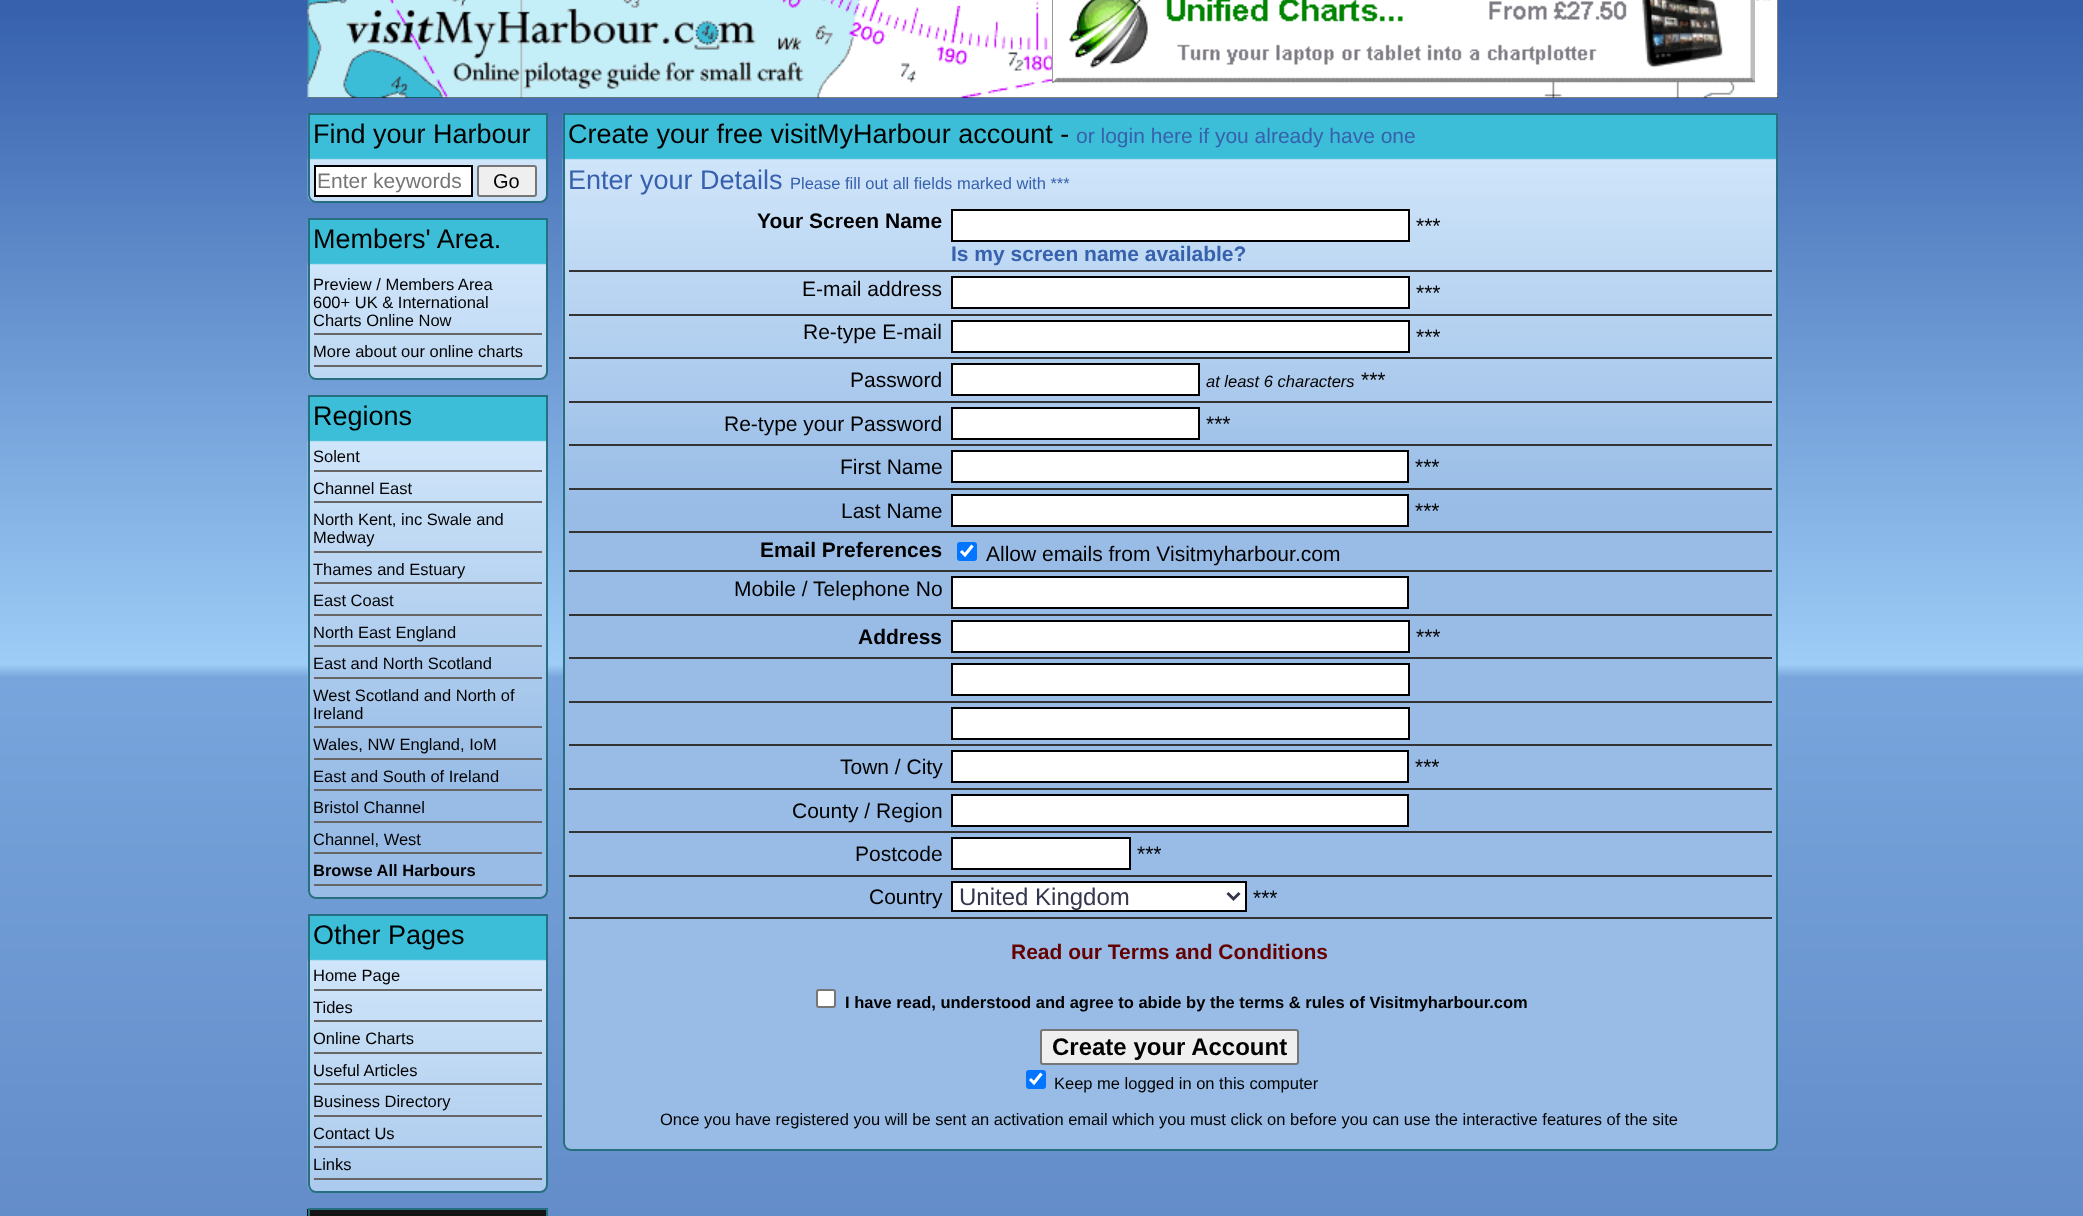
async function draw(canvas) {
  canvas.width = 2083;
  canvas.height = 1216;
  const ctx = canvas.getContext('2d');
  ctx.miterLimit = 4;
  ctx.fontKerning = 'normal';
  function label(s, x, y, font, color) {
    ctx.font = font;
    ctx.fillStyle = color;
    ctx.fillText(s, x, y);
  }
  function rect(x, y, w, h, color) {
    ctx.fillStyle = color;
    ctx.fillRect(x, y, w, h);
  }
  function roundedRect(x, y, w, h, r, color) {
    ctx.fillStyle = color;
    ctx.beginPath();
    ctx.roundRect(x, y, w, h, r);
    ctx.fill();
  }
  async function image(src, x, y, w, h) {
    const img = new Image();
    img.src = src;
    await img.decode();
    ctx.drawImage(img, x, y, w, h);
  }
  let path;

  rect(0, 0, 2083, 1216, '#fff');
  await image('assets/img1.png', 0, 0, 2083, 1216);
  rect(308, 0, 1470, 98, '#000');
  await image('assets/img2.png', 307, 0, 1471, 98);
  rect(1052, 0, 2, 83, '#999');
  await image('assets/img3.png', 1053, 0, 702, 83);
  await image('assets/img4.png', 307, 114, 241, 89);
  ctx.beginPath();
  ctx.roundRect(309, 114, 238, 88, [0, 0, 7, 7]);
  ctx.strokeStyle = '#256f7f';
  ctx.lineWidth = 2;
  ctx.stroke();
  label('Find your Harbour', 313, 143, '27px Liberation Sans', '#000');
  ctx.fillStyle = '#fff';
  ctx.beginPath();
  ctx.rect(315, 166, 157, 30);
  ctx.fill();
  ctx.strokeStyle = '#000';
  ctx.stroke();
  label('Enter keywords', 317, 188, '21px Liberation Sans', '#757575');
  ctx.fillStyle = '#efefef';
  ctx.beginPath();
  ctx.roundRect(478, 166, 58, 30, 2);
  ctx.fill();
  ctx.strokeStyle = '#767676';
  ctx.stroke();
  label('Go', 493, 188, '20px Liberation Sans', '#000');
  await image('assets/img5.png', 307, 219, 241, 161);
  ctx.beginPath();
  ctx.roundRect(309, 219, 238, 160, [0, 0, 7, 7]);
  ctx.strokeStyle = '#256f7f';
  ctx.stroke();
  label('Members\' Area.', 313, 248, '27px Liberation Sans', '#000');
  rect(314, 333, 228, 2, '#666');
  label('Preview / Members Area', 313, 290, '16.5px Liberation Sans', '#000');
  label('600+ UK & International', 313, 308, '16.5px Liberation Sans', '#000');
  label('Charts Online Now', 313, 326, '16.5px Liberation Sans', '#000');
  rect(314, 365, 228, 2, '#666');
  label('More about our online charts', 313, 357, '16.5px Liberation Sans', '#000');
  ctx.fillStyle = '#98bce6';
  ctx.beginPath();
  ctx.roundRect(308, 395, 240, 504, [0, 0, 8, 8]);
  ctx.fill();
  await image('assets/img6.png', 307, 396, 239, 392);
  ctx.beginPath();
  ctx.roundRect(309, 396, 238, 502, [0, 0, 7, 7]);
  ctx.stroke();
  label('Regions', 313, 425, '27px Liberation Sans', '#000');
  rect(314, 470, 228, 2, '#666');
  label('Solent', 313, 462, '16.5px Liberation Sans', '#000');
  rect(314, 501, 228, 2, '#666');
  label('Channel East', 313, 494, '16.5px Liberation Sans', '#000');
  rect(314, 551, 228, 2, '#666');
  label('North Kent, inc Swale and', 313, 525, '16.5px Liberation Sans', '#000');
  label('Medway', 313, 543, '16.5px Liberation Sans', '#000');
  rect(314, 582, 228, 2, '#666');
  label('Thames and Estuary', 313, 575, '16.5px Liberation Sans', '#000');
  rect(314, 614, 228, 2, '#666');
  label('East Coast', 313, 606, '16.5px Liberation Sans', '#000');
  rect(314, 645, 228, 2, '#666');
  label('North East England', 313, 638, '16.5px Liberation Sans', '#000');
  rect(314, 677, 228, 2, '#666');
  label('East and North Scotland', 313, 669, '16.5px Liberation Sans', '#000');
  rect(314, 726, 228, 2, '#666');
  label('West Scotland and North of', 313, 701, '16.5px Liberation Sans', '#000');
  label('Ireland', 313, 719, '16.5px Liberation Sans', '#000');
  rect(314, 758, 228, 2, '#666');
  label('Wales, NW England, IoM', 313, 750, '16.5px Liberation Sans', '#000');
  rect(314, 789, 228, 2, '#666');
  label('East and South of Ireland', 313, 782, '16.5px Liberation Sans', '#000');
  rect(314, 821, 228, 2, '#666');
  label('Bristol Channel', 313, 813, '16.5px Liberation Sans', '#000');
  rect(314, 852, 228, 2, '#666');
  label('Channel, West', 313, 845, '16.5px Liberation Sans', '#000');
  rect(314, 884, 228, 2, '#666');
  label('Browse All Harbours', 313, 876, 'bold 16.5px Liberation Sans', '#000');
  await image('assets/img7.png', 307, 915, 241, 278);
  ctx.beginPath();
  ctx.roundRect(309, 915, 238, 277, [0, 0, 7, 7]);
  ctx.stroke();
  label('Other Pages', 313, 944, '27px Liberation Sans', '#000');
  rect(314, 989, 228, 2, '#666');
  label('Home Page', 313, 981, '16.5px Liberation Sans', '#000');
  rect(314, 1020, 228, 2, '#666');
  label('Tides', 313, 1013, '16.5px Liberation Sans', '#000');
  rect(314, 1052, 228, 2, '#666');
  label('Online Charts', 313, 1044, '16.5px Liberation Sans', '#000');
  rect(314, 1083, 228, 2, '#666');
  label('Useful Articles', 313, 1076, '16.5px Liberation Sans', '#000');
  rect(314, 1115, 228, 2, '#666');
  label('Business Directory', 313, 1107, '16.5px Liberation Sans', '#000');
  rect(314, 1146, 228, 2, '#666');
  label('Contact Us', 313, 1139, '16.5px Liberation Sans', '#000');
  rect(314, 1178, 228, 2, '#666');
  label('Links', 313, 1170, '16.5px Liberation Sans', '#000');
  rect(307, 1209, 241, 7, '#151515');
  ctx.strokeRect(309, 1209, 238, 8);
  ctx.fillStyle = '#98bce6';
  ctx.beginPath();
  ctx.roundRect(563, 113, 1215, 1038, [0, 0, 8, 8]);
  ctx.fill();
  await image('assets/img8.png', 562, 114, 1214, 391);
  ctx.beginPath();
  ctx.roundRect(564, 114, 1213, 1036, [0, 0, 7, 7]);
  ctx.stroke();
  label('Create your free visitMyHarbour account -', 568, 143, '27px Liberation Sans', '#000');
  label('or login here if you already have one', 1076, 143, '21px Liberation Sans', '#3761ad');
  label('Enter your Details', 568, 189, '27px Liberation Sans', '#3761ad');
  label('Please fill out all fields marked with ***', 790, 189, '16.5px Liberation Sans', '#3761ad');
  rect(569, 270, 1203, 2, '#333');
  label('Your Screen Name', 757, 228, 'bold 21px Liberation Sans', '#000');
  ctx.fillStyle = '#fff';
  ctx.beginPath();
  ctx.rect(952, 210, 457, 31);
  ctx.fill();
  ctx.strokeStyle = '#000';
  ctx.stroke();
  label('***', 1416, 233, '21px Liberation Sans', '#000');
  label('Is my screen name available?', 951, 261, 'bold 21px Liberation Sans', '#3761ad');
  rect(569, 314, 1203, 2, '#333');
  label('E-mail address', 802, 296, '21px Liberation Sans', '#000');
  ctx.fillStyle = '#fff';
  ctx.beginPath();
  ctx.rect(952, 277, 457, 31);
  ctx.fill();
  ctx.stroke();
  label('***', 1416, 300, '21px Liberation Sans', '#000');
  rect(569, 357, 1203, 2, '#333');
  label('Re-type E-mail', 803, 339, '21px Liberation Sans', '#000');
  ctx.fillStyle = '#fff';
  ctx.beginPath();
  ctx.rect(952, 321, 457, 31);
  ctx.fill();
  ctx.stroke();
  label('***', 1416, 344, '21px Liberation Sans', '#000');
  rect(569, 401, 1203, 2, '#333');
  label('Password', 850, 387, '21px Liberation Sans', '#000');
  ctx.fillStyle = '#fff';
  ctx.beginPath();
  ctx.rect(952, 364, 247, 31);
  ctx.fill();
  ctx.stroke();
  label('at least 6 characters', 1206, 387, 'italic 16.5px Liberation Sans', '#000');
  label('***', 1361, 387, '21px Liberation Sans', '#000');
  rect(569, 444, 1203, 2, '#333');
  label('Re-type your Password', 724, 431, '21px Liberation Sans', '#000');
  ctx.fillStyle = '#fff';
  ctx.beginPath();
  ctx.rect(952, 408, 247, 31);
  ctx.fill();
  ctx.stroke();
  label('***', 1206, 431, '21px Liberation Sans', '#000');
  rect(569, 488, 1203, 2, '#333');
  label('First Name', 840, 474, '21px Liberation Sans', '#000');
  ctx.fillStyle = '#fff';
  ctx.beginPath();
  ctx.rect(952, 451, 456, 31);
  ctx.fill();
  ctx.stroke();
  label('***', 1415, 474, '21px Liberation Sans', '#000');
  rect(569, 531, 1203, 2, '#333');
  label('Last Name', 841, 518, '21px Liberation Sans', '#000');
  ctx.fillStyle = '#fff';
  ctx.beginPath();
  ctx.rect(952, 495, 456, 31);
  ctx.fill();
  ctx.stroke();
  label('***', 1415, 518, '21px Liberation Sans', '#000');
  rect(569, 570, 1203, 2, '#333');
  label('Email Preferences', 760, 557, 'bold 21px Liberation Sans', '#000');
  roundedRect(957, 542, 20, 19, 3, '#0075ff');
  path = new Path2D('M961 551L965 555L972.5 545.5');
  ctx.strokeStyle = '#fff';
  ctx.lineWidth = 3.1;
  ctx.stroke(path);
  label('Allow emails from Visitmyharbour.com', 986, 561, '21px Liberation Sans', '#000');
  rect(569, 614, 1203, 2, '#333');
  label('Mobile / Telephone No', 734, 596, '21px Liberation Sans', '#000');
  ctx.fillStyle = '#fff';
  ctx.beginPath();
  ctx.rect(952, 577, 456, 31);
  ctx.fill();
  ctx.strokeStyle = '#000';
  ctx.lineWidth = 2;
  ctx.stroke();
  rect(569, 657, 1203, 2, '#333');
  label('Address', 858, 644, 'bold 21px Liberation Sans', '#000');
  ctx.fillStyle = '#fff';
  ctx.beginPath();
  ctx.rect(952, 621, 457, 31);
  ctx.fill();
  ctx.stroke();
  label('***', 1416, 644, '21px Liberation Sans', '#000');
  ctx.fillStyle = '#fff';
  ctx.beginPath();
  ctx.rect(952, 664, 457, 31);
  ctx.fill();
  ctx.stroke();
  rect(569, 701, 1203, 2, '#333');
  ctx.fillStyle = '#fff';
  ctx.beginPath();
  ctx.rect(952, 708, 457, 31);
  ctx.fill();
  ctx.stroke();
  rect(569, 744, 1203, 2, '#333');
  rect(569, 788, 1203, 2, '#333');
  label('Town / City', 840, 774, '21px Liberation Sans', '#000');
  ctx.fillStyle = '#fff';
  ctx.beginPath();
  ctx.rect(952, 751, 456, 31);
  ctx.fill();
  ctx.stroke();
  label('***', 1415, 774, '21px Liberation Sans', '#000');
  rect(569, 831, 1203, 2, '#333');
  label('County / Region', 792, 818, '21px Liberation Sans', '#000');
  ctx.fillStyle = '#fff';
  ctx.beginPath();
  ctx.rect(952, 795, 456, 31);
  ctx.fill();
  ctx.stroke();
  rect(569, 875, 1203, 2, '#333');
  label('Postcode', 855, 861, '21px Liberation Sans', '#000');
  ctx.fillStyle = '#fff';
  ctx.beginPath();
  ctx.rect(952, 838, 178, 31);
  ctx.fill();
  ctx.stroke();
  label('***', 1137, 861, '21px Liberation Sans', '#000');
  rect(569, 917, 1203, 2, '#333');
  label('Country', 869, 904, '21px Liberation Sans', '#000');
  ctx.fillStyle = '#fff';
  ctx.beginPath();
  ctx.rect(952, 882, 294, 29);
  ctx.fill();
  ctx.stroke();
  path = new Path2D('M1227.5 893L1233.5 899L1239.5 893');
  ctx.strokeStyle = '#34364e';
  ctx.lineWidth = 3;
  ctx.stroke(path);
  label('United Kingdom', 959, 905, '24px Liberation Sans', '#34364e');
  label('***', 1253, 905, '21px Liberation Sans', '#000');
  label('Read our Terms and Conditions', 1011, 959, 'bold 21px Liberation Sans', '#600');
  ctx.fillStyle = '#fff';
  ctx.beginPath();
  ctx.roundRect(817, 990, 18, 17, 2);
  ctx.fill();
  ctx.strokeStyle = '#767676';
  ctx.lineWidth = 2;
  ctx.stroke();
  label('I have read, understood and agree to abide by the terms & rules of Visitmyharbour.com', 845, 1008, 'bold 16.5px Liberation Sans', '#000');
  ctx.fillStyle = '#efefef';
  ctx.beginPath();
  ctx.roundRect(1041, 1030, 257, 34, 2);
  ctx.fill();
  ctx.stroke();
  label('Create your Account', 1052, 1055, 'bold 24px Liberation Sans', '#000');
  roundedRect(1026, 1070, 20, 19, 3, '#0075ff');
  path = new Path2D('M1030 1079L1034 1083L1041.5 1073.5');
  ctx.strokeStyle = '#fff';
  ctx.lineWidth = 3.1;
  ctx.stroke(path);
  label('Keep me logged in on this computer', 1054, 1089, '16.5px Liberation Sans', '#000');
  label('Once you have registered you will be sent an activation email which you must click on before you can use the interactive features of the site', 660, 1125, '16.5px Liberation Sans', '#000');
}

draw(document.querySelector('canvas'));
